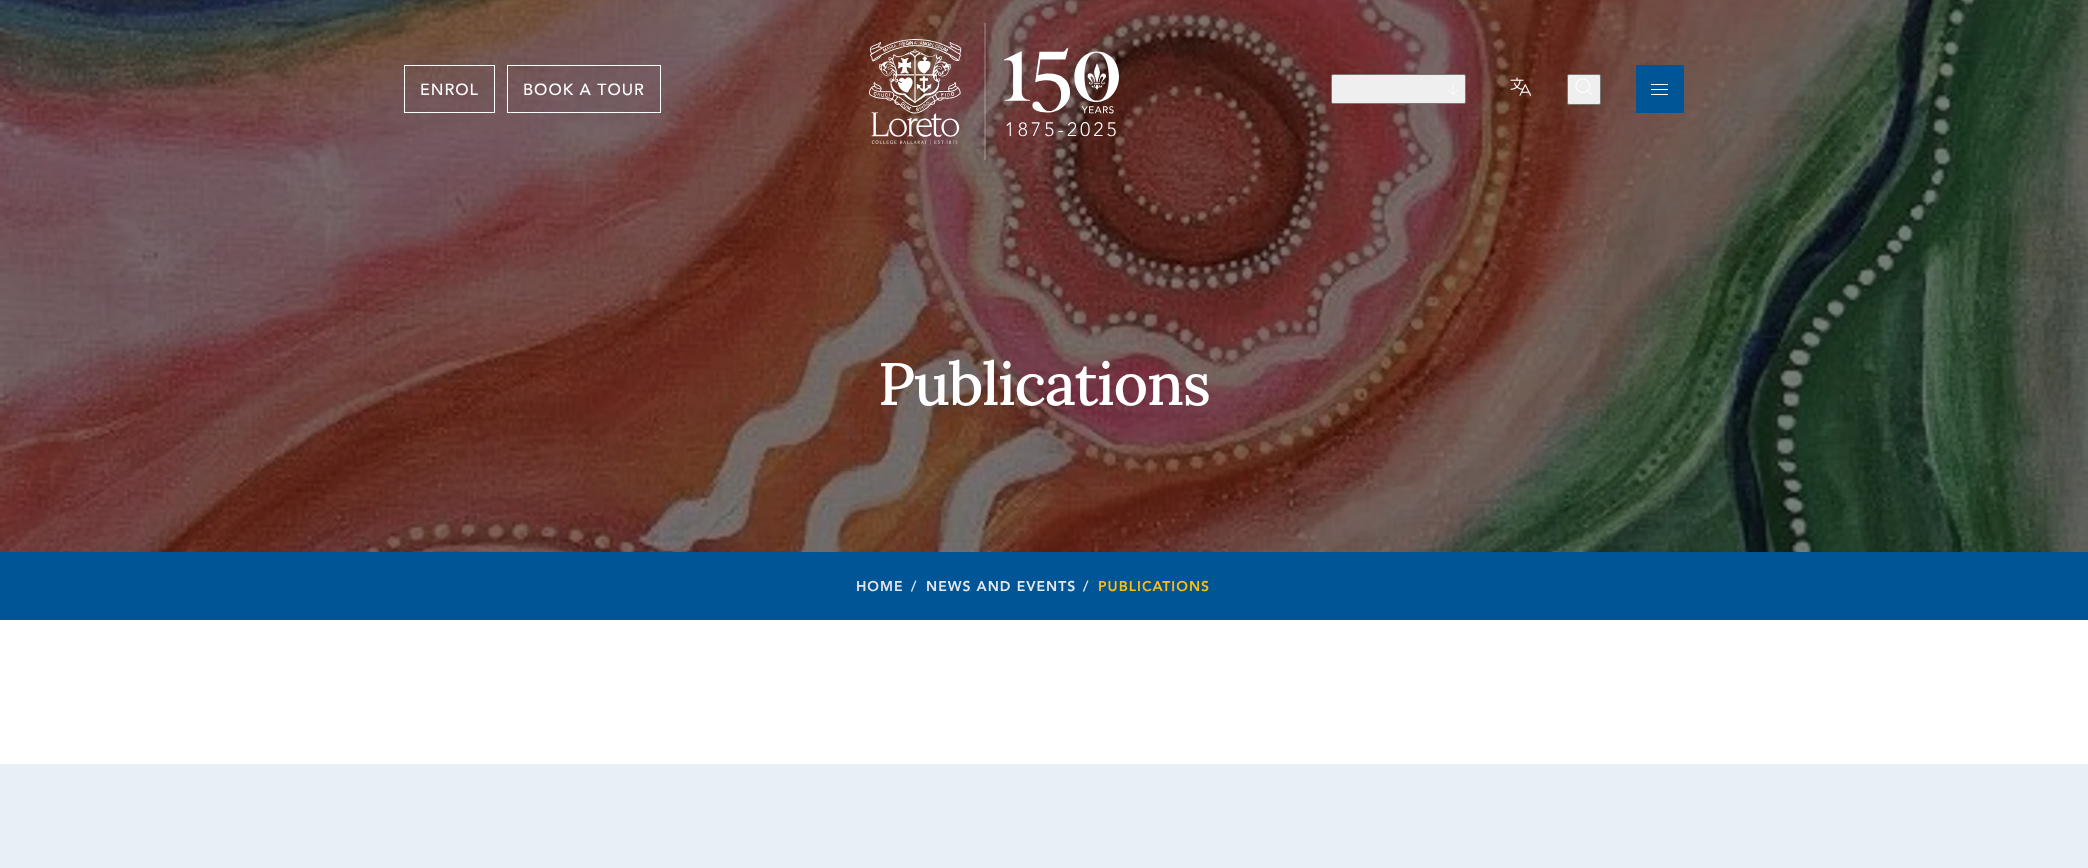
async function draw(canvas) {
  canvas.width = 2088;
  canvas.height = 868;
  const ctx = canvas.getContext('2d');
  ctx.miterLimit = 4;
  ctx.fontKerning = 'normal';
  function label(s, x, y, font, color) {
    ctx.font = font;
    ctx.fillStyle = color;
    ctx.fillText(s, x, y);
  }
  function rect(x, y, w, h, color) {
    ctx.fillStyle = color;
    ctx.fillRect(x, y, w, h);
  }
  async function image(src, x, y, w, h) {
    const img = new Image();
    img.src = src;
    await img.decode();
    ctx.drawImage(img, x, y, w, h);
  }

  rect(0, 0, 2088, 868, '#fff');
  await image('assets/img5.png', 0, 0, 2088, 552);
  ctx.strokeStyle = '#fff';
  ctx.strokeRect(404.5, 65.5, 90, 47);
  ctx.letterSpacing = '1px';
  label('ENROL', 420, 95, '500 16px Avenir', '#fff');
  ctx.strokeRect(507.5, 65.5, 153, 47);
  label('BOOK A TOUR', 523, 95, '500 16px Avenir', '#fff');
  await image('assets/img1.png', 869, 23, 250, 137);
  ctx.fillStyle = '#efefef';
  ctx.beginPath();
  ctx.roundRect(1331.5, 74.5, 134, 29, 1.5);
  ctx.fill();
  ctx.strokeStyle = '#767676';
  ctx.stroke();
  await image('assets/img2.png', 1448, 83, 10, 12);
  await image('assets/img3.png', 1510, 77, 21, 19);
  ctx.beginPath();
  ctx.roundRect(1567.5, 74.5, 33, 30, 1.5);
  ctx.fill();
  ctx.stroke();
  await image('assets/img4.png', 1575, 78, 18, 18);
  rect(1636, 65, 48, 48, '#005596');
  rect(1651, 89, 17, 1, '#fff');
  rect(1651, 84, 17, 1, '#fff');
  rect(1651, 94, 17, 1, '#fff');
  ctx.letterSpacing = '-1.25px';
  label('Publications', 878, 405, '500 60px Lora', '#fff');
  rect(0, 552, 2088, 68, '#005596');
  ctx.letterSpacing = '1px';
  label('HOME', 856, 591, '900 14px Avenir', '#e5e7eb');
  label('/', 911, 591, '900 14px Avenir', '#e5e7eb');
  label('NEWS AND EVENTS', 926, 591, '900 14px Avenir', '#e5e7eb');
  label('/', 1083, 591, '900 14px Avenir', '#e5e7eb');
  label('PUBLICATIONS', 1098, 591, '900 14px Avenir', '#febe10');
  rect(0, 764, 2088, 104, '#e8f0f6');
}

draw(document.querySelector('canvas'));
